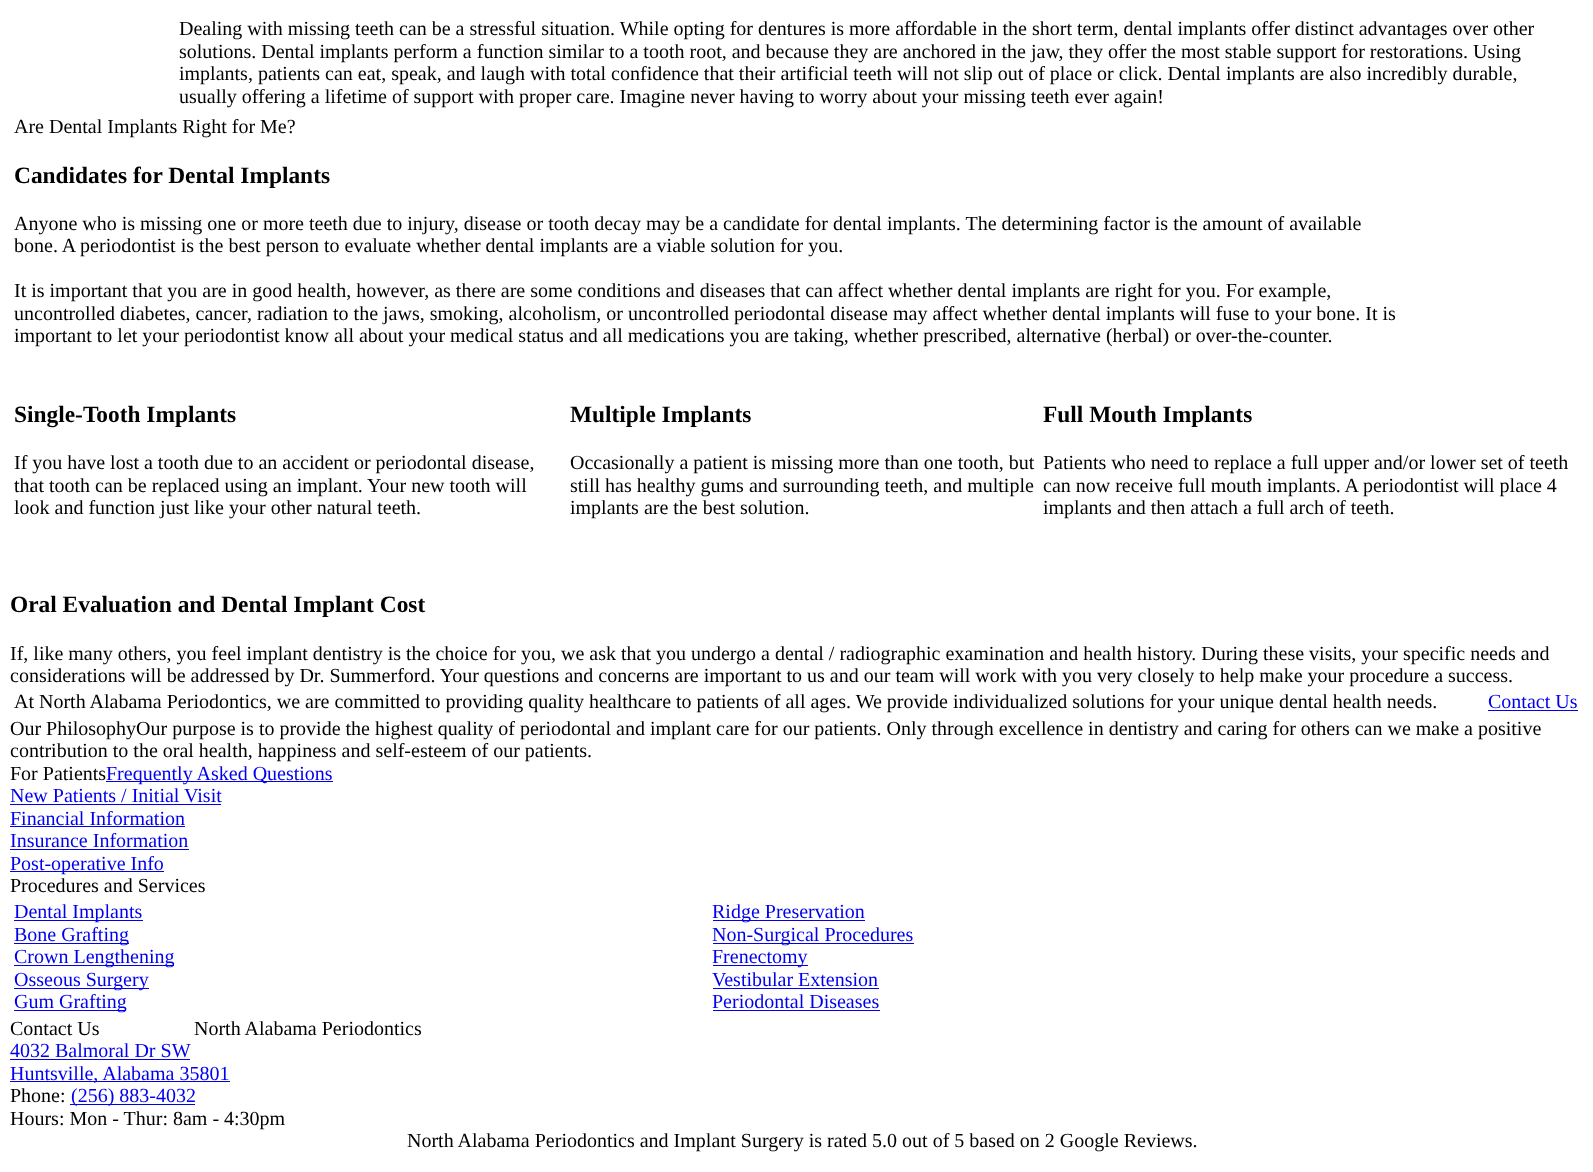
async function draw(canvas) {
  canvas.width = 1593;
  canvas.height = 1172;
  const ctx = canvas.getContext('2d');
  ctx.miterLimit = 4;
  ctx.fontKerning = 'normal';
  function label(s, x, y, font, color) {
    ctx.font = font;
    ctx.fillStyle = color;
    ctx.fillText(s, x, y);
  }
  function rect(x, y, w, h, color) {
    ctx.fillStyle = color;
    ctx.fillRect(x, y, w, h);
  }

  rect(0, 0, 1593, 1172, '#fff');
  label('Dealing with missing teeth can be a stressful situation. While opting for dentures is more affordable in the short term, dental implants offer distinct advantages over other', 179, 35, '20px Liberation Serif', '#000');
  label('solutions. Dental implants perform a function similar to a tooth root, and because they are anchored in the jaw, they offer the most stable support for restorations. Using', 179, 58, '20px Liberation Serif', '#000');
  label('implants, patients can eat, speak, and laugh with total confidence that their artificial teeth will not slip out of place or click. Dental implants are also incredibly durable,', 179, 80, '20px Liberation Serif', '#000');
  label('usually offering a lifetime of support with proper care. Imagine never having to worry about your missing teeth ever again!', 179, 103, '20px Liberation Serif', '#000');
  label('Are Dental Implants Right for Me?', 14, 133, '20px Liberation Serif', '#000');
  label('Candidates for Dental Implants', 14, 183, 'bold 23.4px Liberation Serif', '#000');
  label('Anyone who is missing one or more teeth due to injury, disease or tooth decay may be a candidate for dental implants. The determining factor is the amount of available', 14, 230, '20px Liberation Serif', '#000');
  label('bone. A periodontist is the best person to evaluate whether dental implants are a viable solution for you.', 14, 252, '20px Liberation Serif', '#000');
  label('It is important that you are in good health, however, as there are some conditions and diseases that can affect whether dental implants are right for you. For example,', 14, 297, '20px Liberation Serif', '#000');
  label('uncontrolled diabetes, cancer, radiation to the jaws, smoking, alcoholism, or uncontrolled periodontal disease may affect whether dental implants will fuse to your bone. It is', 14, 320, '20px Liberation Serif', '#000');
  label('important to let your periodontist know all about your medical status and all medications you are taking, whether prescribed, alternative (herbal) or over-the-counter.', 14, 342, '20px Liberation Serif', '#000');
  label('Single-Tooth Implants', 14, 422, 'bold 23.4px Liberation Serif', '#000');
  label('If you have lost a tooth due to an accident or periodontal disease,', 14, 469, '20px Liberation Serif', '#000');
  label('that tooth can be replaced using an implant. Your new tooth will', 14, 492, '20px Liberation Serif', '#000');
  label('look and function just like your other natural teeth.', 14, 514, '20px Liberation Serif', '#000');
  label('Multiple Implants', 570, 422, 'bold 23.4px Liberation Serif', '#000');
  label('Occasionally a patient is missing more than one tooth, but', 570, 469, '20px Liberation Serif', '#000');
  label('still has healthy gums and surrounding teeth, and multiple', 570, 492, '20px Liberation Serif', '#000');
  label('implants are the best solution.', 570, 514, '20px Liberation Serif', '#000');
  label('Full Mouth Implants', 1043, 422, 'bold 23.4px Liberation Serif', '#000');
  label('Patients who need to replace a full upper and/or lower set of teeth', 1043, 469, '20px Liberation Serif', '#000');
  label('can now receive full mouth implants. A periodontist will place 4', 1043, 492, '20px Liberation Serif', '#000');
  label('implants and then attach a full arch of teeth.', 1043, 514, '20px Liberation Serif', '#000');
  label('Oral Evaluation and Dental Implant Cost', 10, 612, 'bold 23.4px Liberation Serif', '#000');
  label('If, like many others, you feel implant dentistry is the choice for you, we ask that you undergo a dental / radiographic examination and health history. During these visits, your specific needs and', 10, 660, '20px Liberation Serif', '#000');
  label('considerations will be addressed by Dr. Summerford. Your questions and concerns are important to us and our team will work with you very closely to help make your procedure a success.', 10, 682, '20px Liberation Serif', '#000');
  label('At North Alabama Periodontics, we are committed to providing quality healthcare to patients of all ages. We provide individualized solutions for your unique dental health needs.', 14, 708, '20px Liberation Serif', '#000');
  label('Contact Us', 1488, 708, '20px Liberation Serif', '#00e');
  rect(1488, 710, 90, 1, '#00e');
  label('Our PhilosophyOur purpose is to provide the highest quality of periodontal and implant care for our patients. Only through excellence in dentistry and caring for others can we make a positive', 10, 735, '20px Liberation Serif', '#000');
  label('contribution to the oral health, happiness and self-esteem of our patients.', 10, 757, '20px Liberation Serif', '#000');
  label('For Patients', 10, 780, '20px Liberation Serif', '#000');
  rect(106, 781, 227, 1, '#00e');
  label('Frequently Asked Questions', 106, 780, '20px Liberation Serif', '#00e');
  label('New Patients / Initial Visit', 10, 802, '20px Liberation Serif', '#00e');
  rect(10, 804, 211, 1, '#00e');
  label('Financial Information', 10, 825, '20px Liberation Serif', '#00e');
  rect(10, 826, 175, 1, '#00e');
  label('Insurance Information', 10, 847, '20px Liberation Serif', '#00e');
  rect(10, 849, 179, 1, '#00e');
  rect(10, 871, 154, 1, '#00e');
  label('Post-operative Info', 10, 870, '20px Liberation Serif', '#00e');
  label('Procedures and Services', 10, 892, '20px Liberation Serif', '#000');
  rect(14, 920, 129, 1, '#00e');
  label('Dental Implants', 14, 918, '20px Liberation Serif', '#00e');
  rect(14, 943, 115, 1, '#00e');
  label('Bone Grafting', 14, 941, '20px Liberation Serif', '#00e');
  rect(14, 965, 160, 1, '#00e');
  label('Crown Lengthening', 14, 963, '20px Liberation Serif', '#00e');
  rect(14, 988, 135, 1, '#00e');
  label('Osseous Surgery', 14, 986, '20px Liberation Serif', '#00e');
  rect(14, 1010, 112, 1, '#00e');
  label('Gum Grafting', 14, 1008, '20px Liberation Serif', '#00e');
  rect(713, 920, 152, 1, '#00e');
  label('Ridge Preservation', 712, 918, '20px Liberation Serif', '#00e');
  rect(713, 943, 201, 1, '#00e');
  label('Non-Surgical Procedures', 712, 941, '20px Liberation Serif', '#00e');
  rect(713, 965, 95, 1, '#00e');
  label('Frenectomy', 712, 963, '20px Liberation Serif', '#00e');
  label('Vestibular Extension', 712, 986, '20px Liberation Serif', '#00e');
  rect(713, 988, 166, 1, '#00e');
  label('Periodontal Diseases', 712, 1008, '20px Liberation Serif', '#00e');
  rect(713, 1010, 167, 1, '#00e');
  label('Contact Us', 10, 1035, '20px Liberation Serif', '#000');
  label('North Alabama Periodontics', 194, 1035, '20px Liberation Serif', '#000');
  label('4032 Balmoral Dr SW', 10, 1057, '20px Liberation Serif', '#00e');
  rect(10, 1059, 180, 1, '#00e');
  rect(10, 1081, 220, 1, '#00e');
  label('Huntsville, Alabama 35801', 10, 1080, '20px Liberation Serif', '#00e');
  label('Phone:', 10, 1102, '20px Liberation Serif', '#000');
  rect(70, 1104, 125, 1, '#00e');
  label('(256) 883-4032', 71, 1102, '20px Liberation Serif', '#00e');
  label('Hours: Mon - Thur: 8am - 4:30pm', 10, 1125, '20px Liberation Serif', '#000');
  label('North Alabama Periodontics and Implant Surgery is rated 5.0 out of 5 based on 2 Google Reviews.', 407, 1147, '20px Liberation Serif', '#000');
}

draw(document.querySelector('canvas'));
